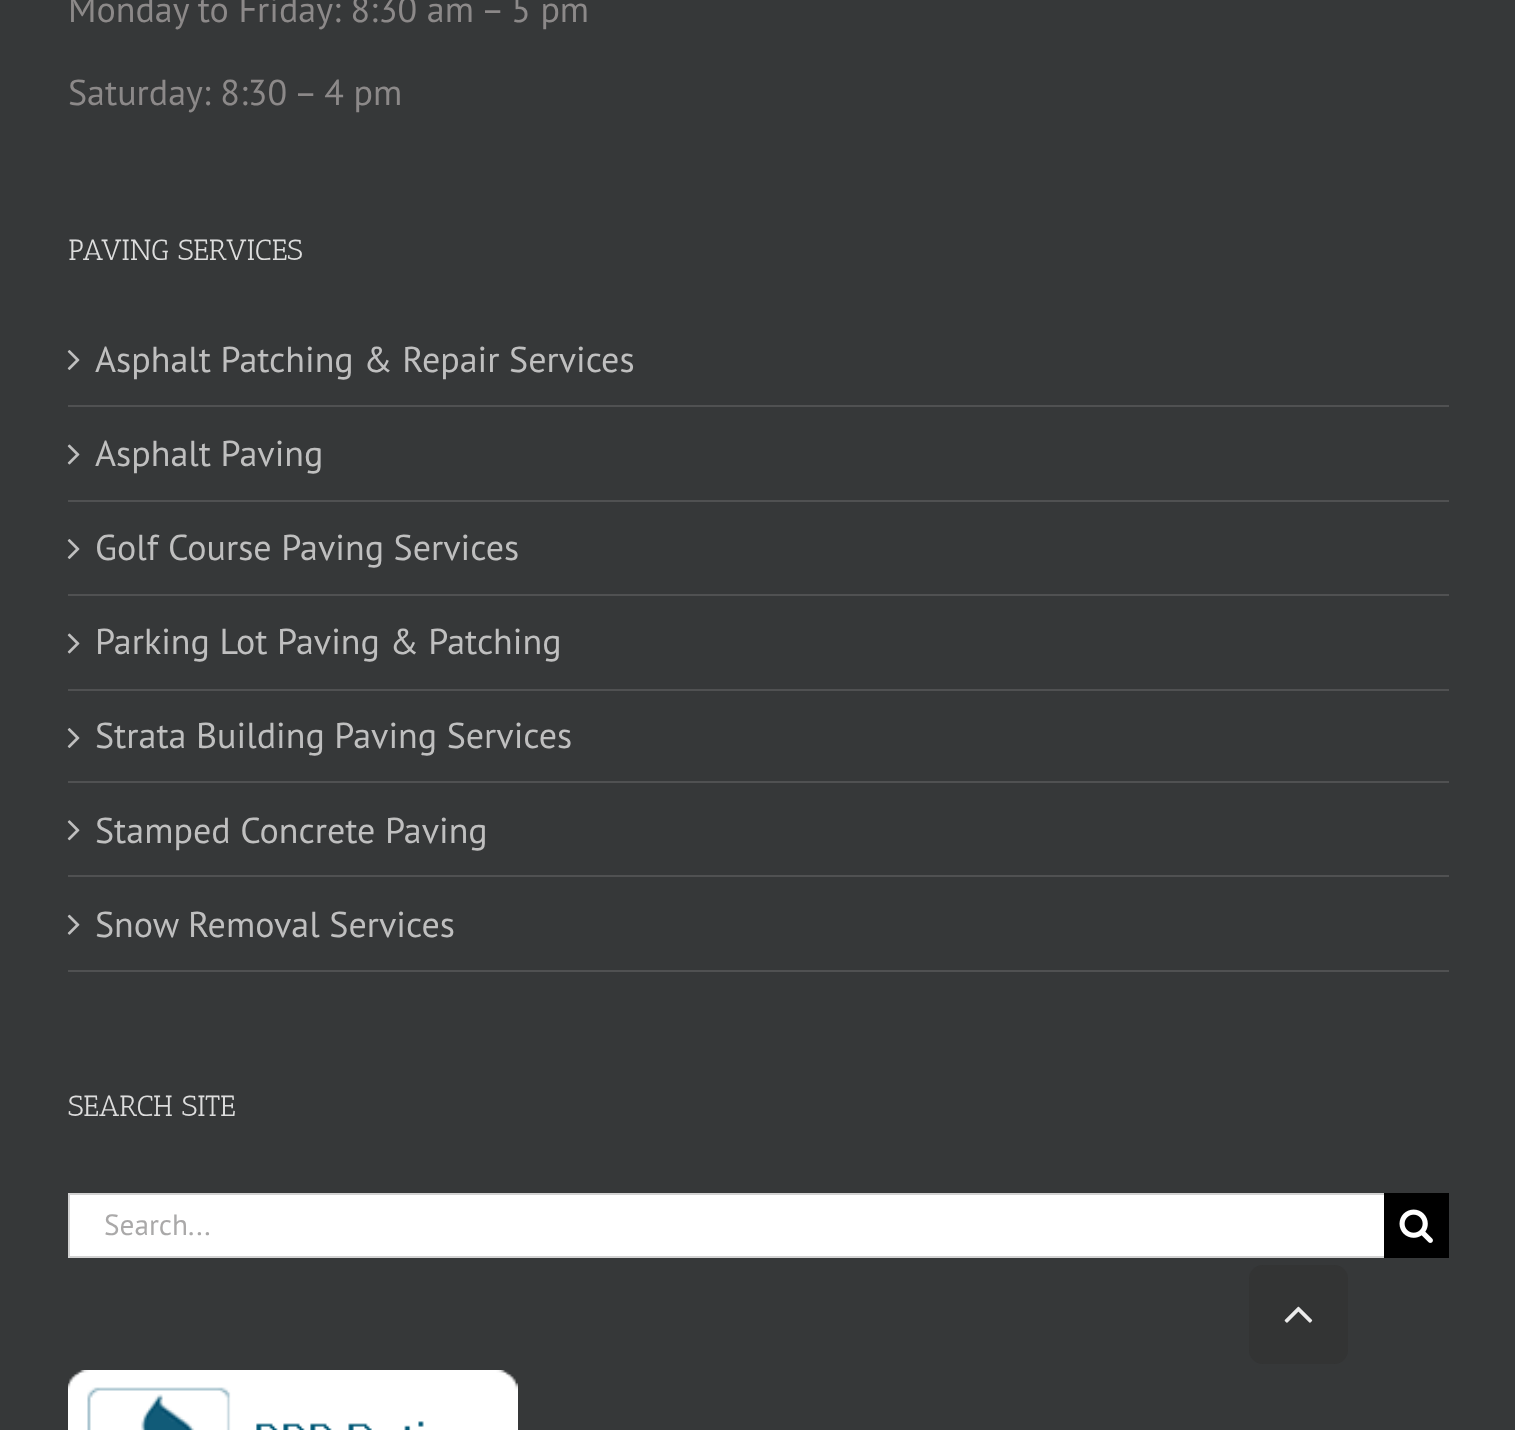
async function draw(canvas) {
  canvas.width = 1515;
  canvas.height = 1430;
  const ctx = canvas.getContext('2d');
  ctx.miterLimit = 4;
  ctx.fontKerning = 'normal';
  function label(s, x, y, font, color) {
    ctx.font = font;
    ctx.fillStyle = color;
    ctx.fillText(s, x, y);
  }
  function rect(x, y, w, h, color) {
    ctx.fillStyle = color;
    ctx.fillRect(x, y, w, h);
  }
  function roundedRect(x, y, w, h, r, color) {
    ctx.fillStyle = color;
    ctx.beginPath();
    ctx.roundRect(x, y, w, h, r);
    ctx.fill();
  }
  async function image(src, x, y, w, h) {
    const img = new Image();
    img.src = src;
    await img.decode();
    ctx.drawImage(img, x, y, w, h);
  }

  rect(0, 0, 1515, 1430, '#363839');
  label('Monday to Friday: 8:30 am – 5 pm', 68, 22, '36px PT Sans', '#8c8989');
  label('Saturday: 8:30 – 4 pm', 68, 105, '36px PT Sans', '#8c8989');
  label('PAVING SERVICES', 68, 260, '29.25px Antic Slab', '#ddd');
  rect(68, 405, 1381, 2, '#505152');
  await image('assets/img1.png', 67, 350, 13, 20);
  label('Asphalt Patching & Repair Services', 95, 372, '36px PT Sans', '#bfbfbf');
  rect(68, 500, 1381, 2, '#505152');
  await image('assets/img2.png', 67, 444, 13, 21);
  label('Asphalt Paving', 95, 466, '36px PT Sans', '#bfbfbf');
  rect(68, 594, 1381, 2, '#505152');
  await image('assets/img1.png', 67, 539, 13, 20);
  label('Golf Course Paving Services', 95, 560, '36px PT Sans', '#bfbfbf');
  rect(68, 689, 1381, 2, '#505152');
  await image('assets/img2.png', 67, 633, 13, 21);
  label('Parking Lot Paving & Patching', 95, 654, '36px PT Sans', '#bfbfbf');
  rect(68, 781, 1381, 2, '#505152');
  await image('assets/img1.png', 67, 728, 13, 20);
  label('Strata Building Paving Services', 95, 748, '36px PT Sans', '#bfbfbf');
  rect(68, 875, 1381, 2, '#505152');
  await image('assets/img3.png', 67, 820, 13, 21);
  label('Stamped Concrete Paving', 95, 843, '36px PT Sans', '#bfbfbf');
  rect(68, 970, 1381, 2, '#505152');
  await image('assets/img4.png', 67, 914, 13, 21);
  label('Snow Removal Services', 95, 937, '36px PT Sans', '#bfbfbf');
  label('SEARCH SITE', 68, 1116, '29.25px Antic Slab', '#ddd');
  rect(70, 1195, 1314, 61, '#fff');
  rect(68, 1193, 1316, 2, '#d2d2d2');
  rect(68, 1256, 1316, 2, '#d2d2d2');
  rect(68, 1193, 2, 65, '#d2d2d2');
  label('Search...', 104, 1235, '29.25px PT Sans', '#aaa9a9');
  rect(1384, 1193, 65, 65, '#000');
  await image('assets/img5.png', 1399, 1209, 34, 34);
  await image('assets/img6.png', 68, 1370, 450, 60);
  roundedRect(1249, 1265, 99, 99, 14, '#333434');
  await image('assets/img7.png', 1284, 1306, 29, 17);
}

draw(document.querySelector('canvas'));
